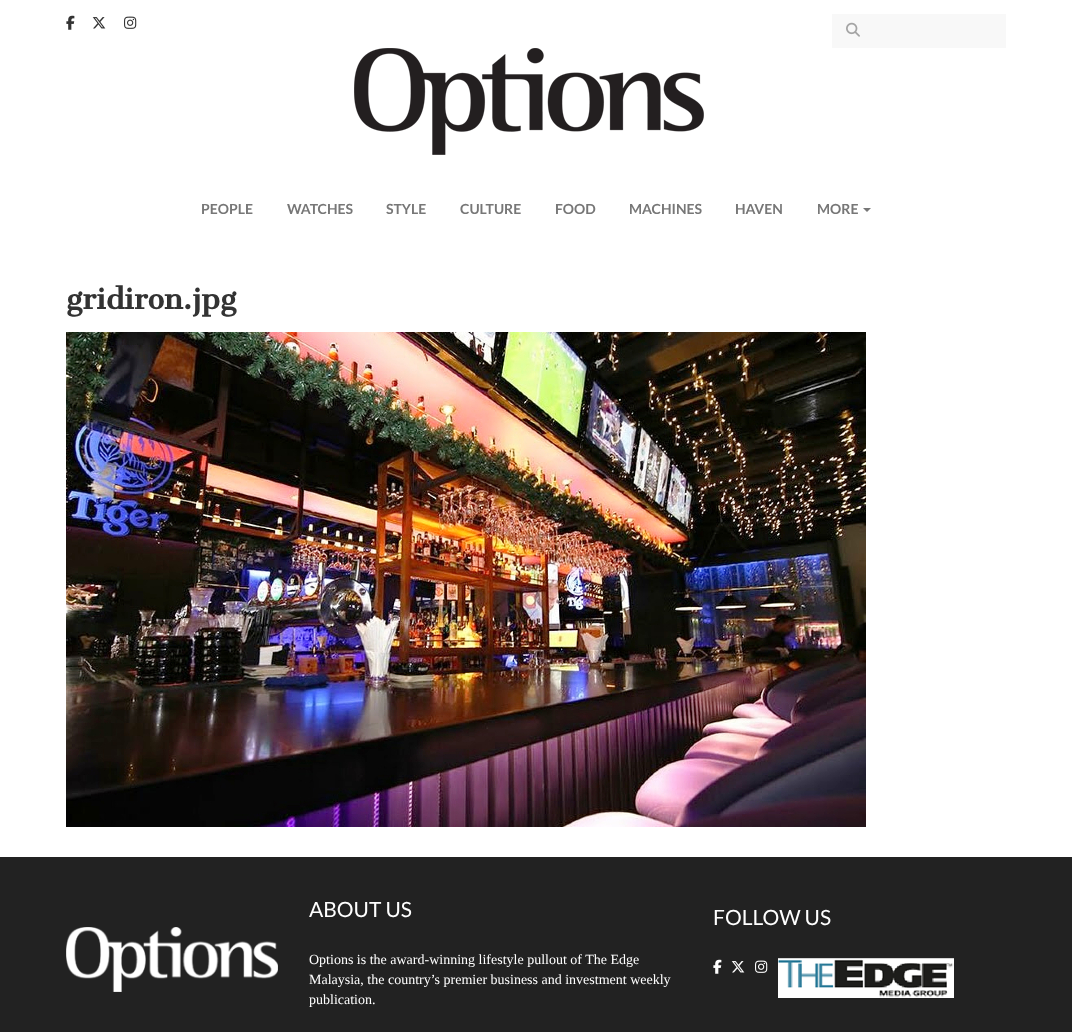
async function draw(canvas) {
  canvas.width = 1072;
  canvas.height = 1032;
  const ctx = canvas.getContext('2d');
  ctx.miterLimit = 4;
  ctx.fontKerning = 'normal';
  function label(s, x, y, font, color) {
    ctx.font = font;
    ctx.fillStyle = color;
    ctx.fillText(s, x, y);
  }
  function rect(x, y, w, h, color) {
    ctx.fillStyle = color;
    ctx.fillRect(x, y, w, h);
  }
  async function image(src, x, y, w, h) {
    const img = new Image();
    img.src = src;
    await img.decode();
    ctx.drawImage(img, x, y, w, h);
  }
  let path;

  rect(0, 0, 1072, 1032, '#fff');
  await image('assets/img1.png', 66, 15, 9, 15);
  await image('assets/img2.png', 92, 17, 14, 12);
  await image('assets/img3.png', 124, 16, 13, 13);
  rect(832, 14, 174, 34, '#f8f8f8');
  await image('assets/img4.png', 846, 22, 14, 15);
  await image('assets/img5.png', 354, 48, 350, 107);
  label('PEOPLE', 201, 214, 'bold 14px Lato', '#777');
  label('WATCHES', 287, 214, 'bold 14px Lato', '#777');
  label('STYLE', 386, 214, 'bold 14px Lato', '#777');
  label('CULTURE', 460, 214, 'bold 14px Lato', '#777');
  label('FOOD', 555, 214, 'bold 14px Lato', '#777');
  label('MACHINES', 629, 214, 'bold 14px Lato', '#777');
  label('HAVEN', 735, 214, 'bold 14px Lato', '#777');
  label('MORE', 817, 214, 'bold 14px Lato', '#777');
  path = new Path2D('M863 208H871L867 212Z');
  ctx.fill(path);
  label('gridiron.jpg', 66, 309, 'bold 28px Cantata One', '#333');
  await image('assets/img6.png', 66, 332, 800, 495);
  rect(0, 857, 1072, 175, '#222');
  label('ABOUT US', 309, 917, '21px Lato', '#fff');
  label('Options is the award-winning lifestyle pullout of The Edge', 309, 964, '14px Liberation Serif', '#fff');
  label('Malaysia, the country’s premier business and investment weekly', 309, 984, '14px Liberation Serif', '#fff');
  label('publication.', 309, 1004, '14px Liberation Serif', '#fff');
  label('FOLLOW US', 713, 925, '21px Lato', '#fff');
  await image('assets/img7.png', 713, 959, 9, 15);
  await image('assets/img8.png', 731, 961, 14, 12);
  await image('assets/img9.png', 755, 960, 13, 13);
  await image('assets/img10.png', 778, 958, 176, 40);
  await image('assets/img11.png', 66, 927, 212, 65);
}

draw(document.querySelector('canvas'));
